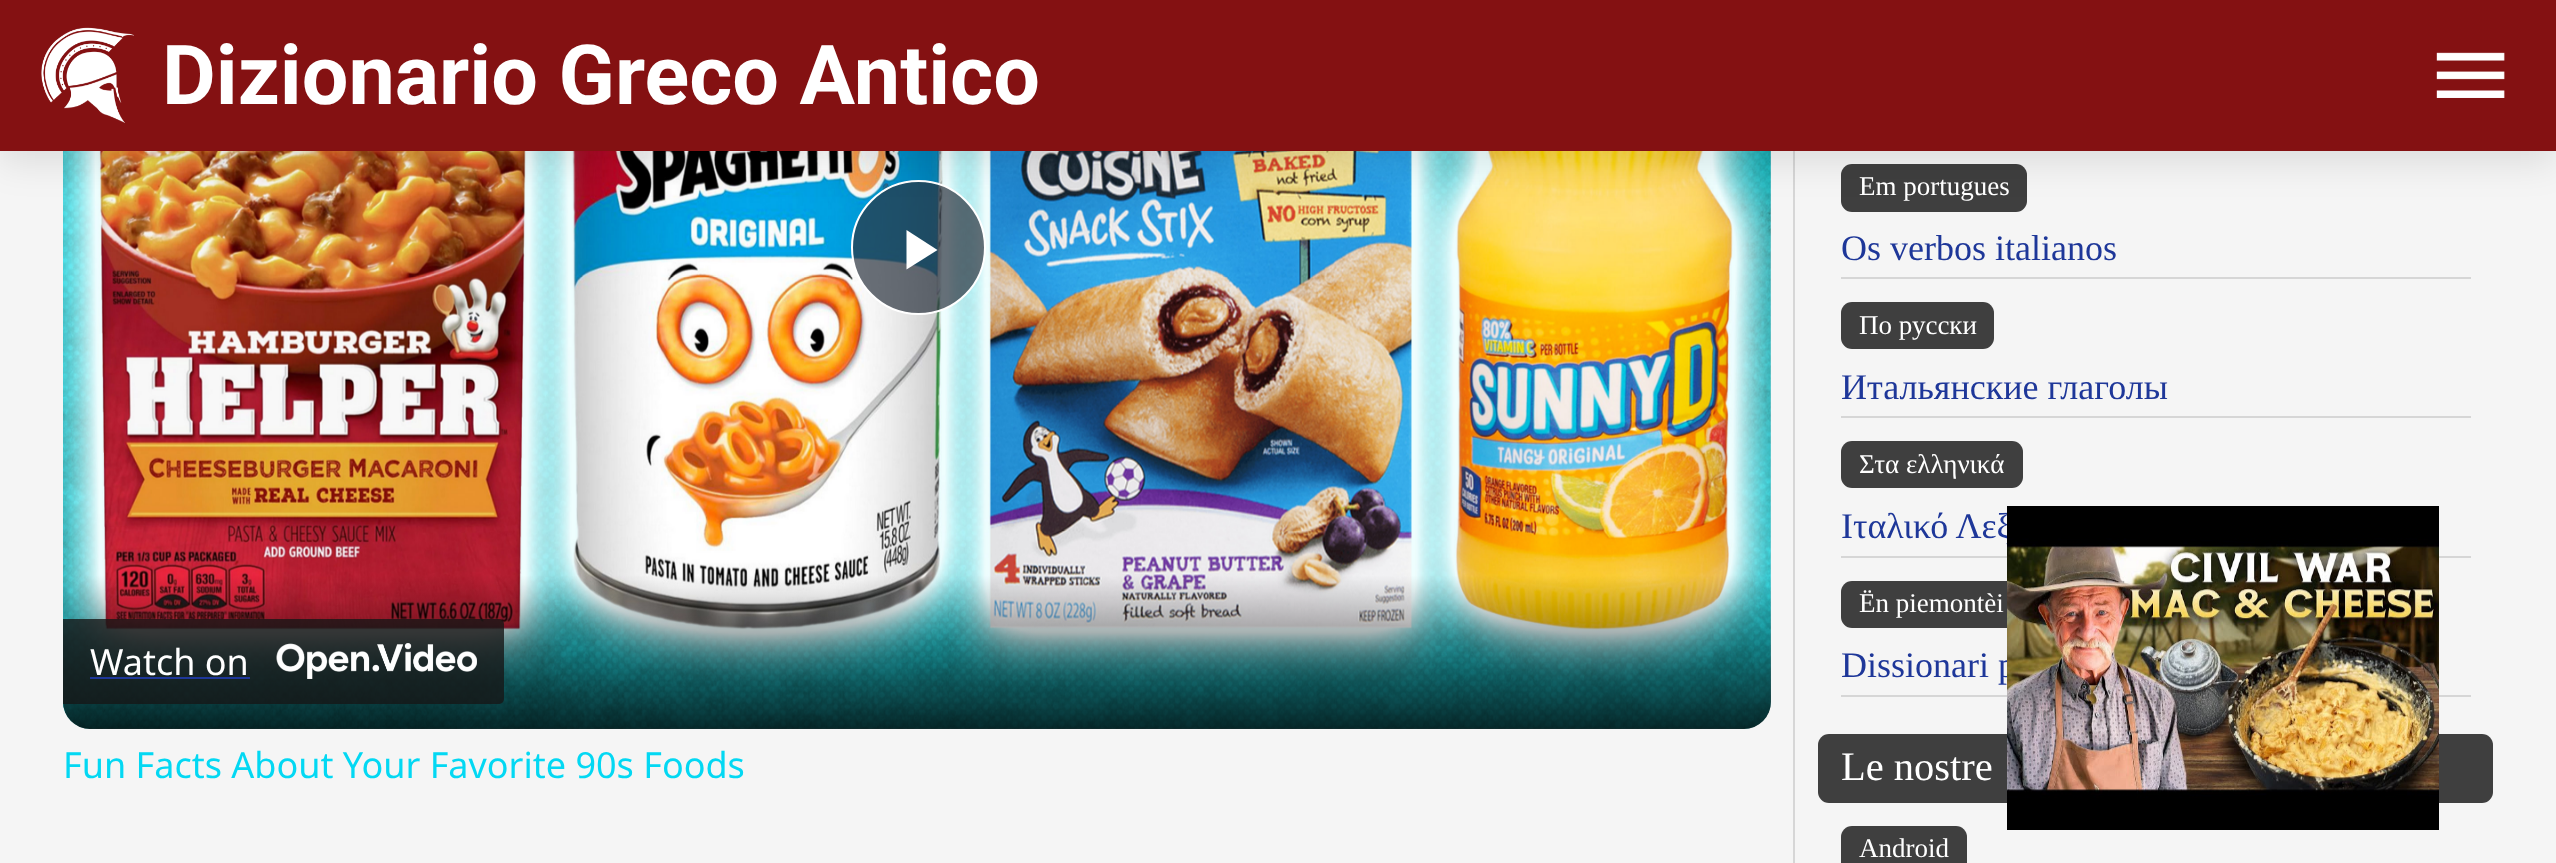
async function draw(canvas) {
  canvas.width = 2556;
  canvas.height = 863;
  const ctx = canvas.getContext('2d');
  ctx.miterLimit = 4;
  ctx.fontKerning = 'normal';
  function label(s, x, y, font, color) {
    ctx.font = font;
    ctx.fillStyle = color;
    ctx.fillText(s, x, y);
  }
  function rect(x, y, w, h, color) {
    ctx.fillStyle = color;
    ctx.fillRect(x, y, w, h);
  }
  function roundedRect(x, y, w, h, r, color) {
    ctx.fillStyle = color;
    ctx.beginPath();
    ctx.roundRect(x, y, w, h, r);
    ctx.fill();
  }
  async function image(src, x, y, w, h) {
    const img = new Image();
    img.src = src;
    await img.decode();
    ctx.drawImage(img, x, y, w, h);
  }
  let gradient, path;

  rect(0, 0, 2556, 863, '#f5f5f5');
  await image('assets/img3.png', 63, 151, 1708, 578);
  await image('assets/img4.png', 63, 151, 1708, 578);
  ctx.fillStyle = '#2b333fb3';
  ctx.beginPath();
  ctx.arc(918.5, 247.5, 66.5, 0, 2 * Math.PI);
  ctx.fill();
  ctx.strokeStyle = '#fff';
  ctx.lineWidth = 2;
  ctx.stroke();
  ctx.fillStyle = '#fff';
  path = new Path2D('M906.5 230V269.5L937.5 250Z');
  ctx.fill(path);
  gradient = ctx.createLinearGradient(917, -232, 917, 729);
  gradient.addColorStop(0, '#00000099');
  gradient.addColorStop(0.16, '#00000000');
  gradient.addColorStop(0.84, '#00000000');
  gradient.addColorStop(1, '#000000cc');
  ctx.fillStyle = gradient;
  ctx.beginPath();
  ctx.roundRect(63, -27, 1708, 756, 27);
  ctx.fill();
  rect(1793, 151, 2, 712, '#d6d6d6');
  roundedRect(1841, 164, 186, 48, 11, '#3f3f3f');
  ctx.fillStyle = '#0000001a';
  ctx.filter = 'blur(18px)';
  ctx.beginPath();
  ctx.rect(0, 11, 2556, 151);
  ctx.fill();
  ctx.filter = 'none';
  rect(0, 0, 2556, 151, '#841112');
  await image('assets/img1.png', 41, 27, 93, 96);
  label('Dizionario Greco Antico', 162, 104, 'bold 82.75px Roboto', '#fff');
  await image('assets/img2.png', 2436, 52, 69, 46);
  ctx.fillStyle = '#171717cc';
  ctx.beginPath();
  ctx.roundRect(63, 619, 441, 85, [0, 5, 5, 0]);
  ctx.fill();
  label('Watch on', 90, 675, '36px Noto Sans', '#fff');
  rect(90, 677, 160, 2, '#1e3799');
  await image('assets/img5.png', 276, 643, 201, 36);
  rect(1841, 556, 630, 2, '#d6d6d6');
  label('Ιταλικό Λεξ', 1841, 538, '36px Liberation Serif', '#1e3799');
  roundedRect(1841, 581, 191, 47, 11, '#3f3f3f');
  rect(1841, 695, 630, 2, '#d6d6d6');
  label('Dissionari p', 1841, 677, '36px Liberation Serif', '#1e3799');
  roundedRect(1818, 734, 675, 69, 11, '#3f3f3f');
  await image('assets/img6.png', 2007, 506, 432, 324);
  label('Fun Facts About Your Favorite 90s Foods', 63, 778, '36px Noto Sans', '#03d8f3');
  label('Em portugues', 1859, 195, '27px Liberation Serif', '#fff');
  rect(1841, 277, 630, 2, '#d6d6d6');
  label('Os verbos italianos', 1841, 260, '36px Liberation Serif', '#1e3799');
  roundedRect(1841, 302, 153, 47, 11, '#3f3f3f');
  label('По русски', 1859, 334, '27px Liberation Serif', '#fff');
  rect(1841, 416, 630, 2, '#d6d6d6');
  label('Итальянские глаголы', 1841, 399, '36px Liberation Serif', '#1e3799');
  roundedRect(1841, 441, 182, 47, 11, '#3f3f3f');
  label('Στα ελληνικά', 1859, 473, '27px Liberation Serif', '#fff');
  label('Ën piemontèi', 1859, 612, '27px Liberation Serif', '#fff');
  label('Le nostre', 1841, 780, '40.5px Liberation Serif', '#fff');
  roundedRect(1841, 826, 126, 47, 11, '#3f3f3f');
  label('Android', 1859, 857, '27px Liberation Serif', '#fff');
}

draw(document.querySelector('canvas'));
